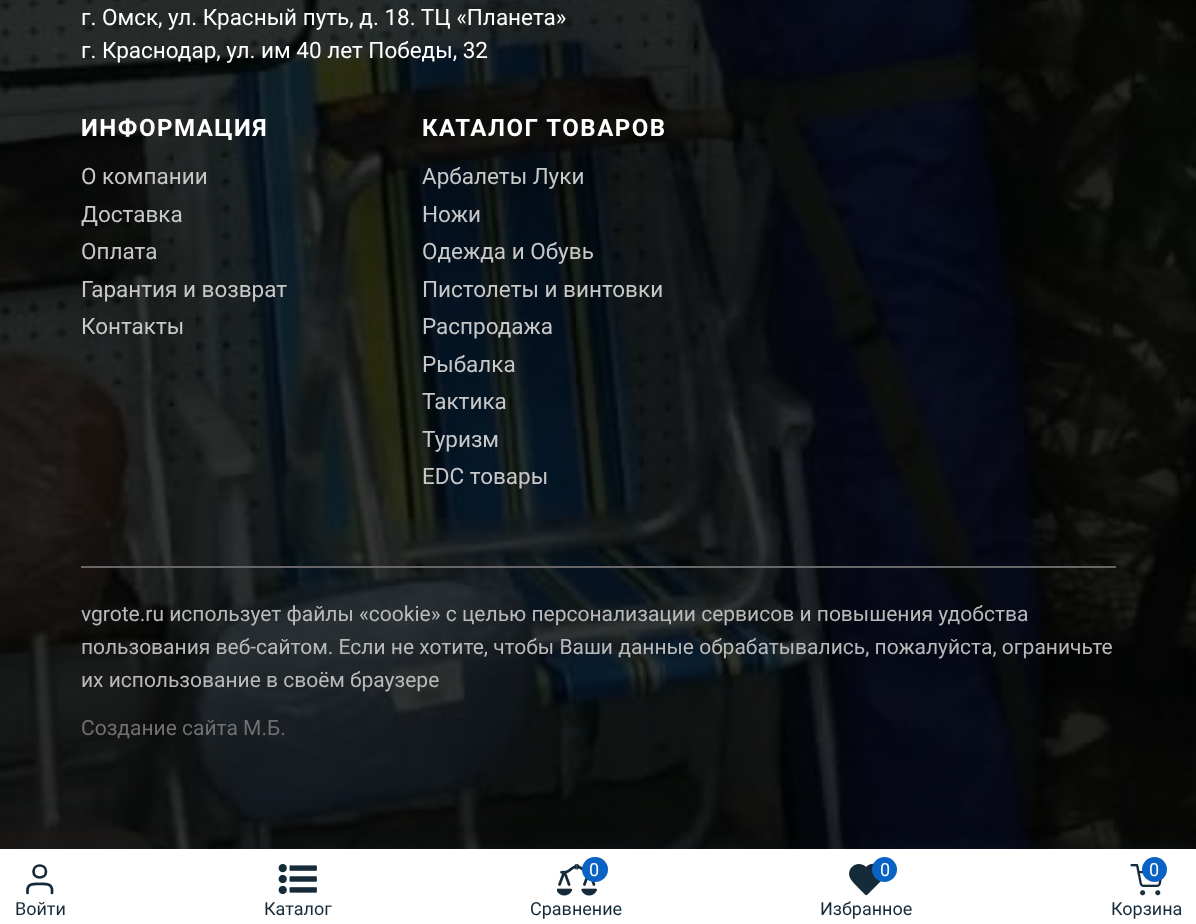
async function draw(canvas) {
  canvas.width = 1196;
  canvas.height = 924;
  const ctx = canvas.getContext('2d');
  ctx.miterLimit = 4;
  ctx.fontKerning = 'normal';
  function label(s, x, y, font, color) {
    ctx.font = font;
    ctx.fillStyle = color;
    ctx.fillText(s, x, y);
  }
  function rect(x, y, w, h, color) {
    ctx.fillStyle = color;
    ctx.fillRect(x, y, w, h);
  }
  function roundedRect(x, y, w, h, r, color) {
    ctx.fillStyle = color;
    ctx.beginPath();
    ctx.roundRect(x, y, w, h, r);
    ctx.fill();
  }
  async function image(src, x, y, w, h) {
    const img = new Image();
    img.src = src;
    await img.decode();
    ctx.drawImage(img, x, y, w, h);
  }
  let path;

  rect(0, 0, 1196, 924, '#fff');
  await image('assets/img1.png', 0, 0, 1196, 849);
  label('г. Омск, ул. Красный путь, д. 18. ТЦ «Планета»', 81, 25, '22.5px Roboto', '#fff');
  label('г. Краснодар, ул. им 40 лет Победы, 32', 81, 58, '22.5px Roboto', '#fff');
  ctx.letterSpacing = '1.5px';
  label('ИНФОРМАЦИЯ', 81, 136, 'bold 24px Roboto', '#fff');
  ctx.letterSpacing = '0px';
  label('О компании', 81, 184, '22.5px Roboto', '#c8c8c8');
  label('Доставка', 81, 222, '22.5px Roboto', '#c8c8c8');
  label('Оплата', 81, 259, '22.5px Roboto', '#c8c8c8');
  label('Гарантия и возврат', 81, 297, '22.5px Roboto', '#c8c8c8');
  label('Контакты', 81, 334, '22.5px Roboto', '#c8c8c8');
  ctx.letterSpacing = '1.5px';
  label('КАТАЛОГ ТОВАРОВ', 422, 136, 'bold 24px Roboto', '#fff');
  ctx.letterSpacing = '0px';
  label('Арбалеты Луки', 422, 184, '22.5px Roboto', '#c8c8c8');
  label('Ножи', 422, 222, '22.5px Roboto', '#c8c8c8');
  label('Одежда и Обувь', 422, 259, '22.5px Roboto', '#c8c8c8');
  label('Пистолеты и винтовки', 422, 297, '22.5px Roboto', '#c8c8c8');
  label('Распродажа', 422, 334, '22.5px Roboto', '#c8c8c8');
  label('Рыбалка', 422, 372, '22.5px Roboto', '#c8c8c8');
  label('Тактика', 422, 409, '22.5px Roboto', '#c8c8c8');
  label('Туризм', 422, 447, '22.5px Roboto', '#c8c8c8');
  label('EDC товары', 422, 484, '22.5px Roboto', '#c8c8c8');
  rect(81, 566, 1035, 2, '#676669');
  label('vgrote.ru использует файлы «cookie» с целью персонализации сервисов и повышения удобства', 81, 621, '21px Roboto', '#bababa');
  label('пользования веб-сайтом. Если не хотите, чтобы Ваши данные обрабатывались, пожалуйста, ограничьте', 81, 654, '21px Roboto', '#bababa');
  label('их использование в своём браузере', 81, 687, '21px Roboto', '#bababa');
  label('Создание сайта М.Б.', 81, 735, '21px Roboto', '#707070');
  ctx.fillStyle = '#223c5033';
  ctx.filter = 'blur(12px)';
  ctx.beginPath();
  ctx.rect(0, 852, 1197, 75);
  ctx.fill();
  ctx.filter = 'none';
  rect(0, 849, 1196, 75, '#fff');
  path = new Path2D('M52 893V889C51 883 44.5 884 40 884C35 884 28.5 883 27.5 889V893M46 871.5C46 879.5 33.5 879.5 33.5 871.5C33.5 863.5 46 863.5 46 871.5Z');
  ctx.strokeStyle = '#152b3a';
  ctx.lineWidth = 2.7;
  ctx.lineCap = 'round';
  ctx.lineJoin = 'round';
  ctx.stroke(path);
  label('Войти', 15, 915, '18px Roboto', '#152b3a');
  await image('assets/img2.png', 278, 864, 39, 31);
  label('Каталог', 264, 915, '18px Roboto', '#152b3a');
  await image('assets/img3.png', 557, 864, 40, 32);
  roundedRect(582, 857, 26, 25, 12.5, '#0a62c4');
  label('0', 589, 876, '18px Roboto', '#fff');
  label('Сравнение', 530, 915, '18px Roboto', '#152b3a');
  path = new Path2D('M880.5 881.5L869.5 892.5C866 896 866.5 896 863 892.5L858.5 888C856 885 851.5 881.5 850 878C845.5 867.5 858.5 859.5 866 867C875.5 857.5 889.5 871.5 880.5 881.5Z');
  ctx.fill(path);
  ctx.fillStyle = '#0a62c4';
  ctx.beginPath();
  ctx.arc(884.5, 869.5, 12.5, 0, 2 * Math.PI);
  ctx.fill();
  label('0', 880, 876, '18px Roboto', '#fff');
  label('Избранное', 820, 915, '18px Roboto', '#152b3a');
  await image('assets/img4.png', 1130, 864, 32, 32);
  ctx.fillStyle = '#0a62c4';
  ctx.beginPath();
  ctx.arc(1154.5, 869.5, 12.5, 0, 2 * Math.PI);
  ctx.fill();
  label('0', 1149, 876, '18px Roboto', '#fff');
  label('Корзина', 1111, 915, '18px Roboto', '#152b3a');
}

draw(document.querySelector('canvas'));
